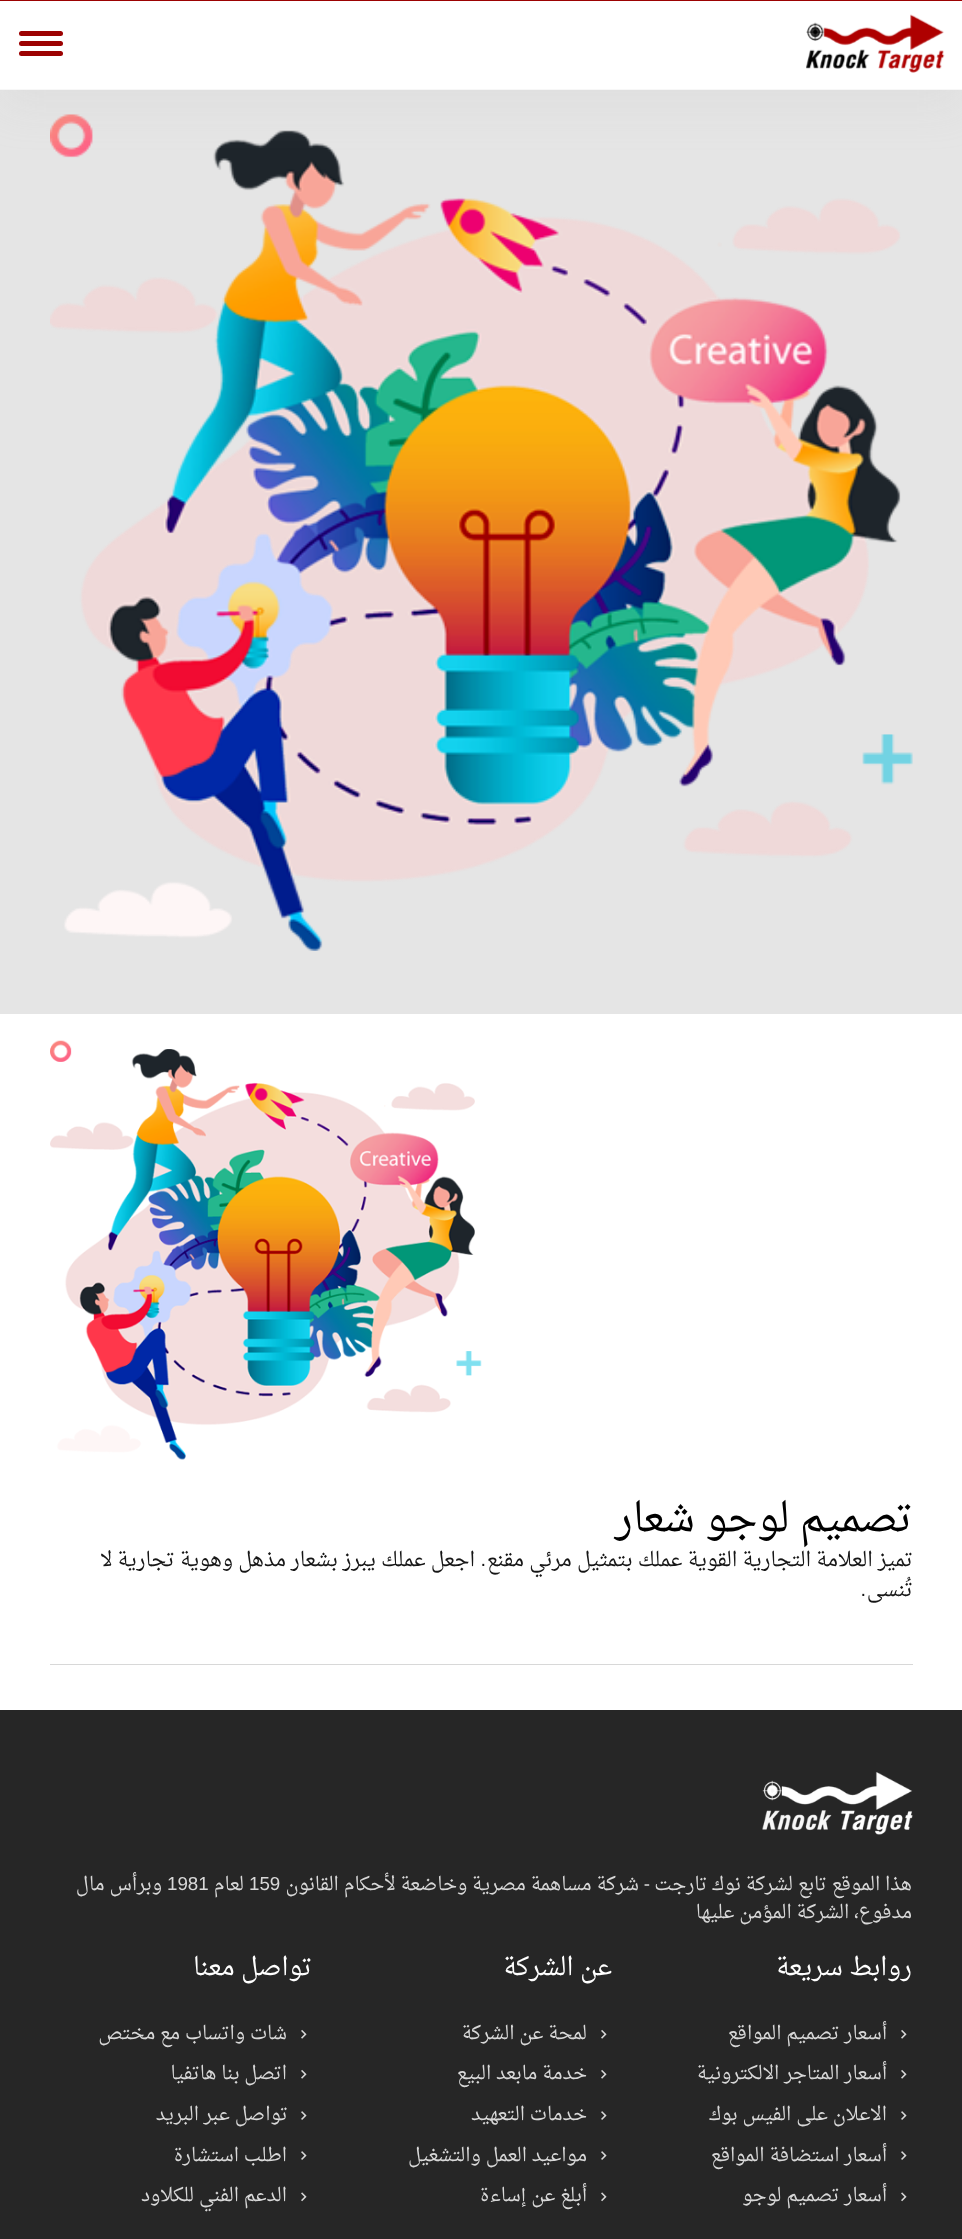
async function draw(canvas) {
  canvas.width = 962;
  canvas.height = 2239;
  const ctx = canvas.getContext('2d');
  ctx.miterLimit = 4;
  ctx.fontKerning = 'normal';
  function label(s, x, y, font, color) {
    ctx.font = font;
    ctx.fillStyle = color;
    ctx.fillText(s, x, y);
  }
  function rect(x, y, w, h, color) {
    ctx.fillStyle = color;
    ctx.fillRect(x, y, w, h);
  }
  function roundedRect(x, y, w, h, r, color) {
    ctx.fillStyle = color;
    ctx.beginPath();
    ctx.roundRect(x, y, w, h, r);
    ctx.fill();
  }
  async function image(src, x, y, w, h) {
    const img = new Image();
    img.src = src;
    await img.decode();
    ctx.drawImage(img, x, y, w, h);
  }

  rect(0, 0, 962, 2239, '#fff');
  rect(0, 90, 962, 924, '#e5e5e5');
  await image('assets/img2.png', 50, 114, 863, 837);
  ctx.fillStyle = '#c4c4c436';
  ctx.filter = 'blur(22px)';
  ctx.beginPath();
  ctx.rect(0, 14, 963, 90);
  ctx.fill();
  ctx.filter = 'none';
  rect(0, 1, 962, 88, '#fff');
  rect(0, 0, 962, 1, '#9c0202');
  rect(0, 89, 962, 1, '#f7f7f7');
  roundedRect(19, 31, 44, 5, 2.5, '#9c0202');
  roundedRect(19, 41, 44, 5, 2.5, '#9c0202');
  roundedRect(19, 51, 44, 5, 2.5, '#9c0202');
  await image('assets/img1.png', 806, 14, 139, 59);
  await image('assets/img3.png', 50, 1040, 432, 420);
  ctx.direction = 'rtl';
  label('تصميم لوجو شعار', 913, 1531, '40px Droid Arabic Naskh', '#000');
  label('تميز العلامة التجارية القوية عملك بتمثيل مرئي مقنع', 913, 1566, '20px Droid Arabic Naskh', '#161616');
  label('.', 486, 1566, '20px Liberation Sans', '#161616');
  label('اجعل عملك يبرز بشعار مذهل وهوية تجارية لا', 475, 1566, '20px Droid Arabic Naskh', '#161616');
  label('تُنسى', 913, 1596, '20px Droid Arabic Naskh', '#161616');
  label('.', 866, 1596, '20px Liberation Sans', '#161616');
  rect(50, 1664, 863, 1, '#d8d8d8');
  rect(0, 1710, 962, 529, '#262626');
  await image('assets/img4.png', 762, 1772, 151, 63);
  label('هذا الموقع تابع لشركة نوك تارجت', 912, 1890, '18.75px Droid Arabic Naskh', '#d8d8d8');
  label('-', 650, 1890, '18.75px Liberation Sans', '#d8d8d8');
  label('شركة مساهمة مصرية وخاضعة لأحكام القانون', 639, 1890, '18.75px Droid Arabic Naskh', '#d8d8d8');
  ctx.direction = 'ltr';
  label('159', 249, 1890, '18.75px Liberation Sans', '#d8d8d8');
  ctx.direction = 'rtl';
  label('لعام', 244, 1890, '18.75px Droid Arabic Naskh', '#d8d8d8');
  ctx.direction = 'ltr';
  label('1981', 167, 1890, '18.75px Liberation Sans', '#d8d8d8');
  ctx.direction = 'rtl';
  label('وبرأس مال', 162, 1890, '18.75px Droid Arabic Naskh', '#d8d8d8');
  label('مدفوع، الشركة المؤمن عليها', 912, 1918, '18.75px Droid Arabic Naskh', '#d8d8d8');
  label('روابط سريعة', 912, 1975, '25px Droid Arabic Naskh', '#fff');
  await image('assets/img5.png', 901, 2029, 6, 10);
  label('أسعار تصميم المواقع', 887, 2039, '18.75px Droid Arabic Naskh', '#d8d8d8');
  await image('assets/img5.png', 901, 2069, 6, 10);
  label('أسعار المتاجر الالكترونية', 887, 2079, '18.75px Droid Arabic Naskh', '#d8d8d8');
  await image('assets/img6.png', 901, 2111, 6, 9);
  label('الاعلان على الفيس بوك', 887, 2120, '18.75px Droid Arabic Naskh', '#d8d8d8');
  await image('assets/img6.png', 901, 2151, 6, 9);
  label('أسعار استضافة المواقع', 887, 2161, '18.75px Droid Arabic Naskh', '#d8d8d8');
  await image('assets/img7.png', 901, 2192, 6, 10);
  label('أسعار تصميم لوجو', 887, 2201, '18.75px Droid Arabic Naskh', '#d8d8d8');
  label('عن الشركة', 612, 1975, '25px Droid Arabic Naskh', '#fff');
  await image('assets/img5.png', 601, 2029, 6, 10);
  label('لمحة عن الشركة', 587, 2039, '18.75px Droid Arabic Naskh', '#d8d8d8');
  await image('assets/img5.png', 601, 2069, 6, 10);
  label('خدمة مابعد البيع', 587, 2079, '18.75px Droid Arabic Naskh', '#d8d8d8');
  await image('assets/img6.png', 601, 2111, 6, 9);
  label('خدمات التعهيد', 587, 2120, '18.75px Droid Arabic Naskh', '#d8d8d8');
  await image('assets/img6.png', 601, 2151, 6, 9);
  label('مواعيد العمل والتشغيل', 587, 2161, '18.75px Droid Arabic Naskh', '#d8d8d8');
  await image('assets/img7.png', 601, 2192, 6, 10);
  label('أبلغ عن إساءة', 587, 2201, '18.75px Droid Arabic Naskh', '#d8d8d8');
  label('تواصل معنا', 312, 1975, '25px Droid Arabic Naskh', '#fff');
  await image('assets/img5.png', 301, 2029, 6, 10);
  label('شات واتساب مع مختص', 287, 2039, '18.75px Droid Arabic Naskh', '#d8d8d8');
  await image('assets/img5.png', 301, 2069, 6, 10);
  label('اتصل بنا هاتفيا', 287, 2079, '18.75px Droid Arabic Naskh', '#d8d8d8');
  await image('assets/img6.png', 301, 2111, 6, 9);
  label('تواصل عبر البريد', 288, 2120, '18.75px Droid Arabic Naskh', '#d8d8d8');
  await image('assets/img6.png', 301, 2151, 6, 9);
  label('اطلب استشارة', 287, 2161, '18.75px Droid Arabic Naskh', '#d8d8d8');
  await image('assets/img7.png', 301, 2192, 6, 10);
  label('الدعم الفني للكلاود', 287, 2201, '18.75px Droid Arabic Naskh', '#d8d8d8');
}

draw(document.querySelector('canvas'));
